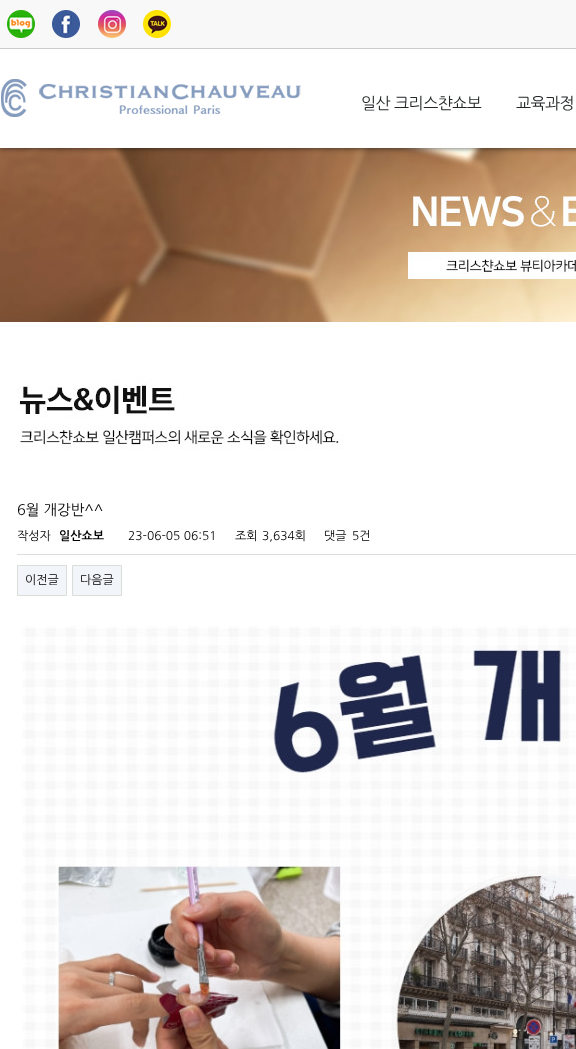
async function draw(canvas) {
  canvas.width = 576;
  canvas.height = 1049;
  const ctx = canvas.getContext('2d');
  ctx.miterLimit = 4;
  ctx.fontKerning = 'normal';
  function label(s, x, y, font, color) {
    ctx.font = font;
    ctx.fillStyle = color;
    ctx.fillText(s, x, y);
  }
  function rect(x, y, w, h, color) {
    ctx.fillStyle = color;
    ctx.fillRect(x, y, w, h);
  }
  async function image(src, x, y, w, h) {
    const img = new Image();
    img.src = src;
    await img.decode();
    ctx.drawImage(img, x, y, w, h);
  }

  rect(0, 0, 576, 1049, '#fff');
  await image('assets/img6.png', 0, 148, 576, 174);
  ctx.fillStyle = '#07070780';
  ctx.filter = 'blur(2.5px)';
  ctx.beginPath();
  ctx.rect(0, 1, 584, 148);
  ctx.fill();
  ctx.filter = 'none';
  rect(0, 49, 576, 99, '#fff');
  rect(0, 0, 576, 48, '#f8f8f8');
  rect(0, 48, 576, 1, '#ccc');
  await image('assets/img1.png', 7, 10, 28, 28);
  await image('assets/img2.png', 52, 10, 28, 28);
  await image('assets/img3.png', 98, 10, 28, 28);
  await image('assets/img4.png', 143, 10, 28, 28);
  await image('assets/img5.png', 1, 79, 300, 38);
  ctx.letterSpacing = '-0.5px';
  label('일산 크리스챤쇼보', 361, 109, '16px NanumGothic', '#232728');
  label('교육과정', 516, 109, '16px NanumGothic', '#232728');
  await image('assets/img7.png', 17, 378, 328, 72);
  ctx.letterSpacing = '0px';
  label('6월 개강반^^', 17, 515, '14.5px NanumGothic', '#000');
  rect(17, 554, 559, 1, '#ddd');
  label('작성자', 17, 540, '12px NanumGothic', '#000');
  label('일산쇼보', 59, 540, 'bold 12px NanumGothic', '#000');
  label('23-06-05 06:51', 128, 540, '12px NanumGothic', '#000');
  label('조회', 235, 540, '12px NanumGothic', '#000');
  label('3,634회', 262, 540, '12px NanumGothic', '#000');
  label('댓글', 324, 540, '12px NanumGothic', '#000');
  label('5건', 352, 540, '12px NanumGothic', '#000');
  ctx.fillStyle = '#f2f5f9';
  ctx.beginPath();
  ctx.rect(17.5, 565.5, 49, 30);
  ctx.fill();
  ctx.strokeStyle = '#d9ded9';
  ctx.stroke();
  label('이전글', 25, 584, '12px NanumGothic', '#000');
  ctx.fillStyle = '#f2f5f9';
  ctx.beginPath();
  ctx.rect(72.5, 565.5, 49, 30);
  ctx.fill();
  ctx.stroke();
  label('다음글', 80, 584, '12px NanumGothic', '#000');
  await image('assets/img8.png', 22, 626, 554, 423);
}

draw(document.querySelector('canvas'));
